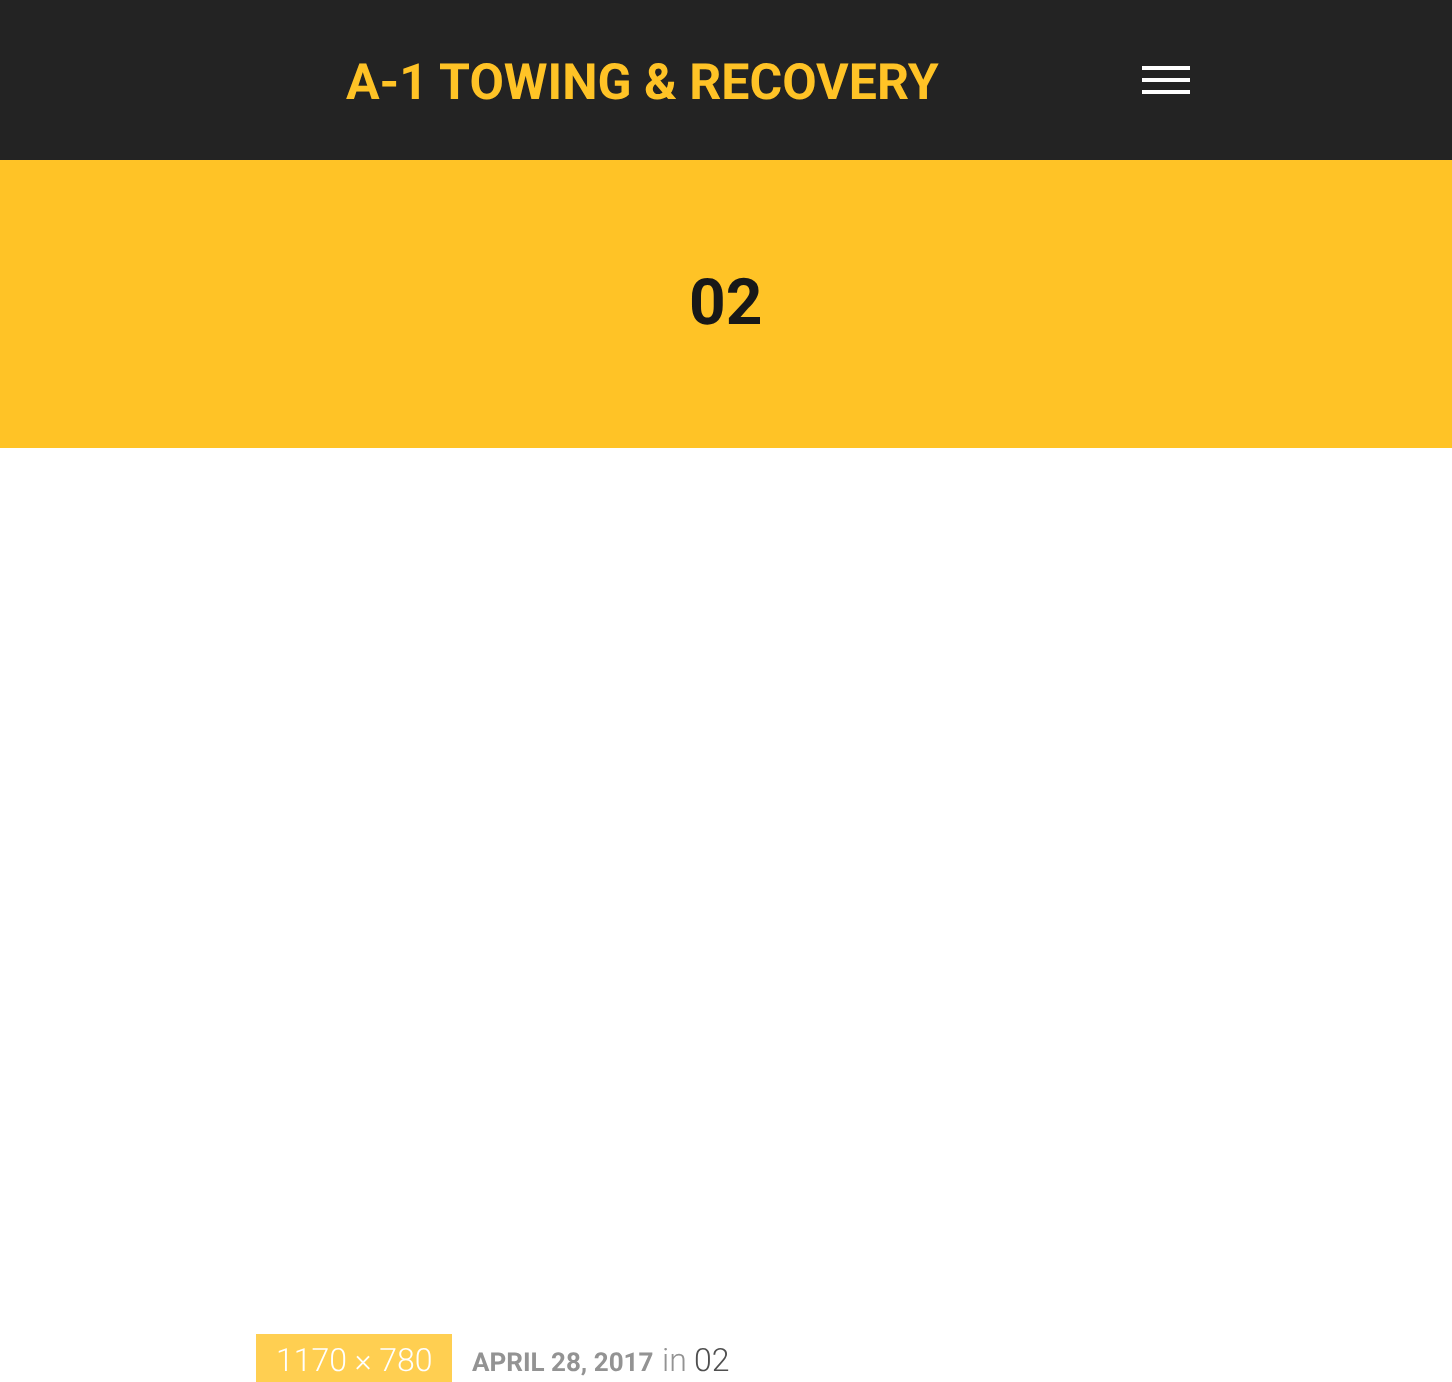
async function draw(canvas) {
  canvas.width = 1452;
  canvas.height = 1382;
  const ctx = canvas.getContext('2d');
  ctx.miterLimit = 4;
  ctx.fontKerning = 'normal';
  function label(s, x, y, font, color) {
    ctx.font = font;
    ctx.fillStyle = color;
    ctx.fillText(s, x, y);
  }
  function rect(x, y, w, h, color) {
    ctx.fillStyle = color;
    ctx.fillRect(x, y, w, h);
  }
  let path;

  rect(0, 0, 1452, 1382, '#fff');
  rect(0, 0, 1452, 160, '#232323');
  label('A-1 TOWING & RECOVERY', 346, 99, 'bold 50px Roboto', '#ffc326');
  rect(1142, 78, 48, 4, '#fff');
  rect(1142, 66, 48, 4, '#fff');
  rect(1142, 90, 48, 4, '#fff');
  rect(0, 160, 1452, 288, '#ffc326');
  label('02', 689, 324, 'bold 64px Roboto', '#181818');
  rect(262, 1340, 184, 36, '#ffcf51');
  path = new Path2D('M259 1337H449V1379H259Z');
  ctx.strokeStyle = '#ffcf51';
  ctx.lineWidth = 6;
  ctx.stroke(path);
  label('1170 × 780', 276, 1371, '300 32px Roboto', '#fff');
  label('APRIL 28, 2017', 472, 1371, 'bold 26px Roboto', '#939393');
  label('in', 662, 1371, '300 32px Roboto', '#939393');
  label('02', 694, 1371, '300 32px Roboto', '#4f4f4f');
}

draw(document.querySelector('canvas'));
